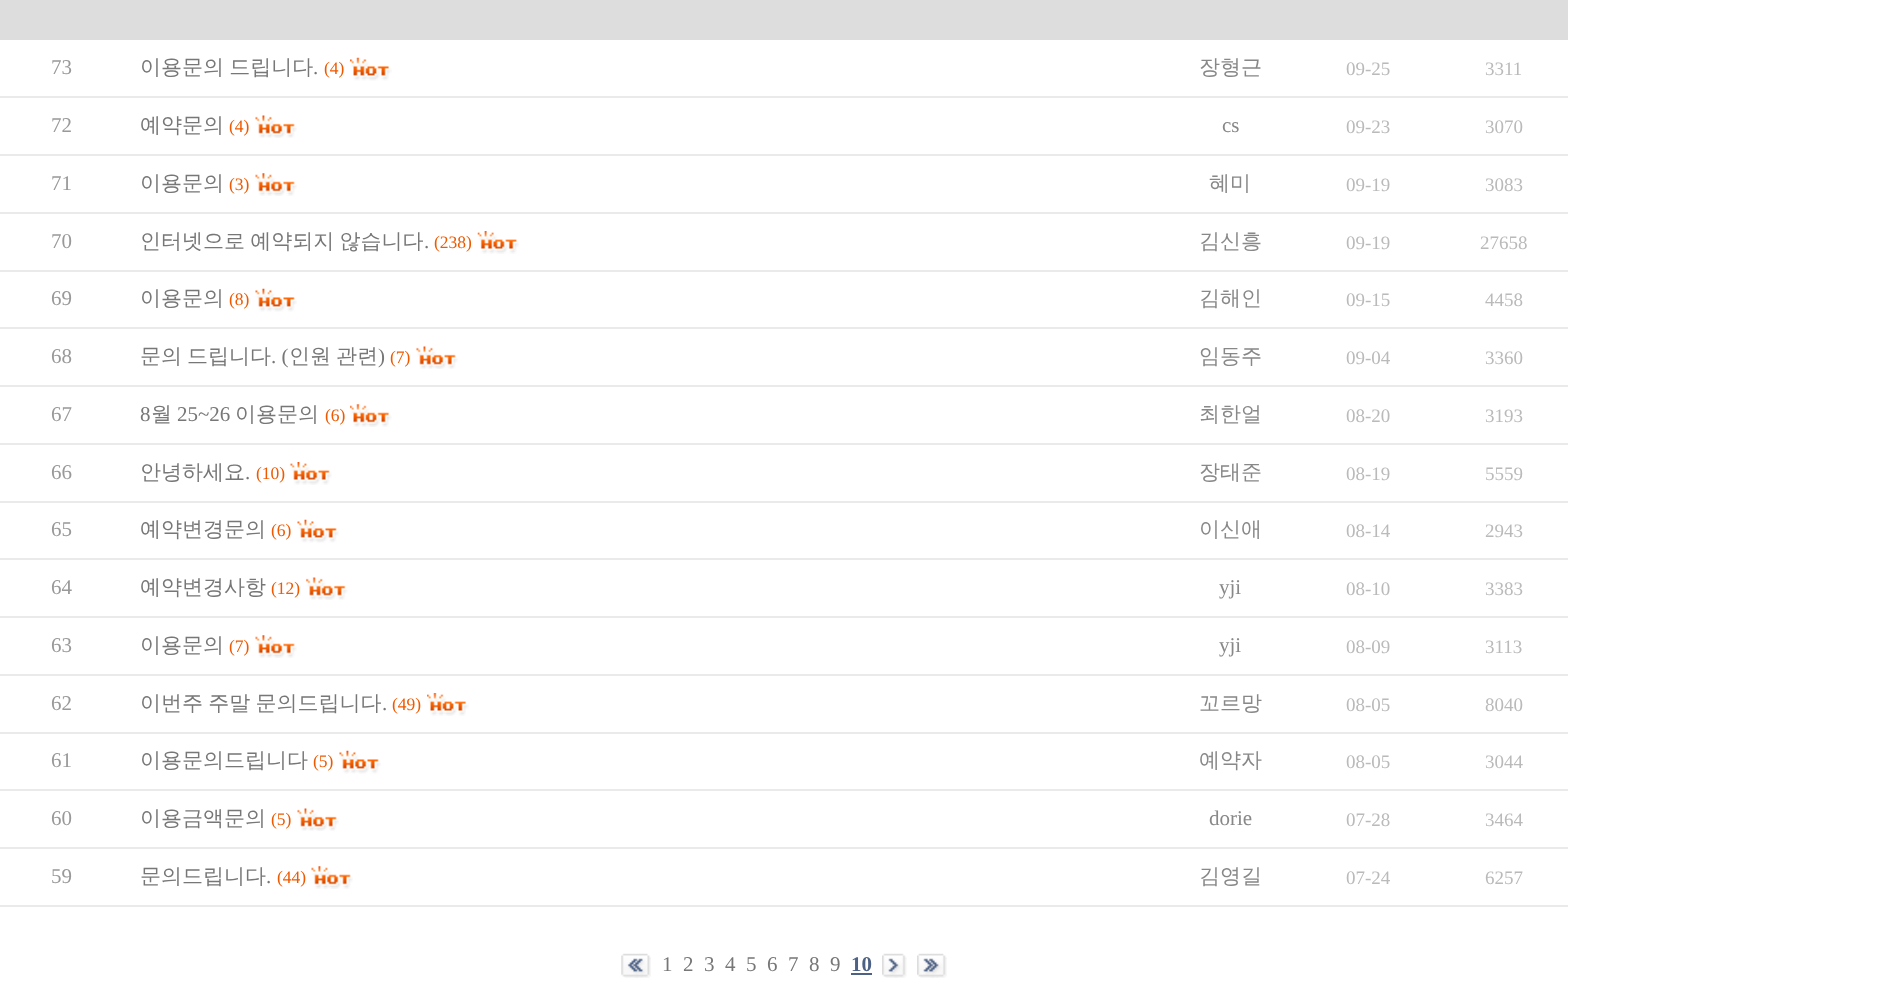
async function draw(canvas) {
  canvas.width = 1887;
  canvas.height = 1003;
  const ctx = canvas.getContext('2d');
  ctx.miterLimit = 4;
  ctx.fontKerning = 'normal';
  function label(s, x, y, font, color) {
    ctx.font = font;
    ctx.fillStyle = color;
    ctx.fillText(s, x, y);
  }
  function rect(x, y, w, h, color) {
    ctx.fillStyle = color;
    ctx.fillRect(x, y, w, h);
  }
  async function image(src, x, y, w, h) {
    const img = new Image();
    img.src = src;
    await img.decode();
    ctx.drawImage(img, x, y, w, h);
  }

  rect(0, 0, 1887, 1003, '#fff');
  rect(0, 0, 1568, 40, '#ddd');
  rect(0, 96, 123, 2, '#eaeaea');
  label('73', 51, 74, '21px Liberation Serif', '#999');
  ctx.wordSpacing = '-1px';
  label('이용문의 드립니다', 140, 74, '500 21px WenQuanYi Zen Hei', '#777');
  ctx.wordSpacing = '0px';
  label('.', 313, 74, '21px Liberation Serif', '#777');
  label('(4)', 324, 74, '17.5px Liberation Serif', '#ee5a00');
  await image('assets/img1.png', 350, 57, 42, 24);
  rect(123, 96, 1445, 2, '#eaeaea');
  label('장형근', 1199, 74, '500 21px WenQuanYi Zen Hei', '#888');
  label('09-25', 1346, 75, '19px Liberation Serif', '#bababa');
  label('3311', 1485, 75, '19px Liberation Serif', '#bababa');
  rect(0, 154, 123, 2, '#eaeaea');
  label('72', 51, 132, '21px Liberation Serif', '#999');
  label('예약문의', 140, 132, '500 21px WenQuanYi Zen Hei', '#777');
  label('(4)', 229, 132, '17.5px Liberation Serif', '#ee5a00');
  await image('assets/img2.png', 255, 115, 42, 23);
  rect(123, 154, 1445, 2, '#eaeaea');
  label('cs', 1222, 132, '21px Liberation Serif', '#888');
  label('09-23', 1346, 133, '19px Liberation Serif', '#bababa');
  label('3070', 1485, 133, '19px Liberation Serif', '#bababa');
  rect(0, 212, 123, 2, '#eaeaea');
  label('71', 51, 190, '21px Liberation Serif', '#999');
  label('이용문의', 140, 190, '500 21px WenQuanYi Zen Hei', '#777');
  label('(3)', 229, 190, '17.5px Liberation Serif', '#ee5a00');
  await image('assets/img3.png', 255, 173, 42, 23);
  rect(123, 212, 1445, 2, '#eaeaea');
  label('혜미', 1209, 190, '500 21px WenQuanYi Zen Hei', '#888');
  label('09-19', 1346, 191, '19px Liberation Serif', '#bababa');
  label('3083', 1485, 191, '19px Liberation Serif', '#bababa');
  rect(0, 270, 123, 2, '#eaeaea');
  label('70', 51, 248, '21px Liberation Serif', '#999');
  ctx.wordSpacing = '-1px';
  label('인터넷으로 예약되지 않습니다', 140, 248, '500 21px WenQuanYi Zen Hei', '#777');
  ctx.wordSpacing = '0px';
  label('.', 424, 248, '21px Liberation Serif', '#777');
  label('(238)', 434, 248, '17.5px Liberation Serif', '#ee5a00');
  await image('assets/img4.png', 477, 231, 42, 23);
  rect(123, 270, 1445, 2, '#eaeaea');
  label('김신흥', 1199, 248, '500 21px WenQuanYi Zen Hei', '#888');
  label('09-19', 1346, 249, '19px Liberation Serif', '#bababa');
  label('27658', 1480, 249, '19px Liberation Serif', '#bababa');
  rect(0, 327, 123, 2, '#eaeaea');
  label('69', 51, 305, '21px Liberation Serif', '#999');
  label('이용문의', 140, 305, '500 21px WenQuanYi Zen Hei', '#777');
  label('(8)', 229, 305, '17.5px Liberation Serif', '#ee5a00');
  await image('assets/img5.png', 255, 288, 42, 24);
  rect(123, 327, 1445, 2, '#eaeaea');
  label('김해인', 1199, 305, '500 21px WenQuanYi Zen Hei', '#888');
  label('09-15', 1346, 306, '19px Liberation Serif', '#bababa');
  label('4458', 1485, 306, '19px Liberation Serif', '#bababa');
  rect(0, 385, 123, 2, '#eaeaea');
  label('68', 51, 363, '21px Liberation Serif', '#999');
  label('문의', 140, 363, '500 21px WenQuanYi Zen Hei', '#777');
  label('드립니다', 187, 363, '500 21px WenQuanYi Zen Hei', '#777');
  label('. (', 271, 363, '21px Liberation Serif', '#777');
  label('인원', 289, 363, '500 21px WenQuanYi Zen Hei', '#777');
  label('관련', 336, 363, '500 21px WenQuanYi Zen Hei', '#777');
  label(')', 378, 363, '21px Liberation Serif', '#777');
  label('(7)', 390, 363, '17.5px Liberation Serif', '#ee5a00');
  await image('assets/img6.png', 416, 346, 42, 23);
  rect(123, 385, 1445, 2, '#eaeaea');
  label('임동주', 1199, 363, '500 21px WenQuanYi Zen Hei', '#888');
  label('09-04', 1346, 364, '19px Liberation Serif', '#bababa');
  label('3360', 1485, 364, '19px Liberation Serif', '#bababa');
  rect(0, 443, 123, 2, '#eaeaea');
  label('67', 51, 421, '21px Liberation Serif', '#999');
  label('8', 140, 421, '21px Liberation Serif', '#777');
  label('월', 151, 421, '500 21px WenQuanYi Zen Hei', '#777');
  label('25~26', 177, 421, '21px Liberation Serif', '#777');
  label('이용문의', 235, 421, '500 21px WenQuanYi Zen Hei', '#777');
  label('(6)', 325, 421, '17.5px Liberation Serif', '#ee5a00');
  await image('assets/img7.png', 350, 404, 42, 23);
  rect(123, 443, 1445, 2, '#eaeaea');
  label('최한얼', 1199, 421, '500 21px WenQuanYi Zen Hei', '#888');
  label('08-20', 1346, 422, '19px Liberation Serif', '#bababa');
  label('3193', 1485, 422, '19px Liberation Serif', '#bababa');
  rect(0, 501, 123, 2, '#eaeaea');
  label('66', 51, 479, '21px Liberation Serif', '#999');
  label('안녕하세요', 140, 479, '500 21px WenQuanYi Zen Hei', '#777');
  label('.', 245, 479, '21px Liberation Serif', '#777');
  label('(10)', 256, 479, '17.5px Liberation Serif', '#ee5a00');
  await image('assets/img8.png', 290, 462, 42, 23);
  rect(123, 501, 1445, 2, '#eaeaea');
  label('장태준', 1199, 479, '500 21px WenQuanYi Zen Hei', '#888');
  label('08-19', 1346, 480, '19px Liberation Serif', '#bababa');
  label('5559', 1485, 480, '19px Liberation Serif', '#bababa');
  rect(0, 558, 123, 2, '#eaeaea');
  label('65', 51, 536, '21px Liberation Serif', '#999');
  label('예약변경문의', 140, 536, '500 21px WenQuanYi Zen Hei', '#777');
  label('(6)', 271, 536, '17.5px Liberation Serif', '#ee5a00');
  await image('assets/img9.png', 297, 519, 42, 24);
  rect(123, 558, 1445, 2, '#eaeaea');
  label('이신애', 1199, 536, '500 21px WenQuanYi Zen Hei', '#888');
  label('08-14', 1346, 537, '19px Liberation Serif', '#bababa');
  label('2943', 1485, 537, '19px Liberation Serif', '#bababa');
  rect(0, 616, 123, 2, '#eaeaea');
  label('64', 51, 594, '21px Liberation Serif', '#999');
  label('예약변경사항', 140, 594, '500 21px WenQuanYi Zen Hei', '#777');
  label('(12)', 271, 594, '17.5px Liberation Serif', '#ee5a00');
  await image('assets/img10.png', 306, 577, 42, 23);
  rect(123, 616, 1445, 2, '#eaeaea');
  label('yji', 1219, 594, '21px Liberation Serif', '#888');
  label('08-10', 1346, 595, '19px Liberation Serif', '#bababa');
  label('3383', 1485, 595, '19px Liberation Serif', '#bababa');
  rect(0, 674, 123, 2, '#eaeaea');
  label('63', 51, 652, '21px Liberation Serif', '#999');
  label('이용문의', 140, 652, '500 21px WenQuanYi Zen Hei', '#777');
  label('(7)', 229, 652, '17.5px Liberation Serif', '#ee5a00');
  await image('assets/img3.png', 255, 635, 42, 23);
  rect(123, 674, 1445, 2, '#eaeaea');
  label('yji', 1219, 652, '21px Liberation Serif', '#888');
  label('08-09', 1346, 653, '19px Liberation Serif', '#bababa');
  label('3113', 1485, 653, '19px Liberation Serif', '#bababa');
  rect(0, 732, 123, 2, '#eaeaea');
  label('62', 51, 710, '21px Liberation Serif', '#999');
  ctx.wordSpacing = '-1px';
  label('이번주 주말 문의드립니다', 140, 710, '500 21px WenQuanYi Zen Hei', '#777');
  ctx.wordSpacing = '0px';
  label('.', 382, 710, '21px Liberation Serif', '#777');
  label('(49)', 392, 710, '17.5px Liberation Serif', '#ee5a00');
  await image('assets/img11.png', 427, 693, 42, 23);
  rect(123, 732, 1445, 2, '#eaeaea');
  label('꼬르망', 1199, 710, '500 21px WenQuanYi Zen Hei', '#888');
  label('08-05', 1346, 711, '19px Liberation Serif', '#bababa');
  label('8040', 1485, 711, '19px Liberation Serif', '#bababa');
  rect(0, 789, 123, 2, '#eaeaea');
  label('61', 51, 767, '21px Liberation Serif', '#999');
  label('이용문의드립니다', 140, 767, '500 21px WenQuanYi Zen Hei', '#777');
  label('(5)', 313, 767, '17.5px Liberation Serif', '#ee5a00');
  await image('assets/img5.png', 339, 750, 42, 24);
  rect(123, 789, 1445, 2, '#eaeaea');
  label('예약자', 1199, 767, '500 21px WenQuanYi Zen Hei', '#888');
  label('08-05', 1346, 768, '19px Liberation Serif', '#bababa');
  label('3044', 1485, 768, '19px Liberation Serif', '#bababa');
  rect(0, 847, 123, 2, '#eaeaea');
  label('60', 51, 825, '21px Liberation Serif', '#999');
  label('이용금액문의', 140, 825, '500 21px WenQuanYi Zen Hei', '#777');
  label('(5)', 271, 825, '17.5px Liberation Serif', '#ee5a00');
  await image('assets/img12.png', 297, 808, 42, 23);
  rect(123, 847, 1445, 2, '#eaeaea');
  label('dorie', 1209, 825, '21px Liberation Serif', '#888');
  label('07-28', 1346, 826, '19px Liberation Serif', '#bababa');
  label('3464', 1485, 826, '19px Liberation Serif', '#bababa');
  rect(0, 905, 123, 2, '#eaeaea');
  label('59', 51, 883, '21px Liberation Serif', '#999');
  label('문의드립니다', 140, 883, '500 21px WenQuanYi Zen Hei', '#777');
  label('.', 266, 883, '21px Liberation Serif', '#777');
  label('(44)', 277, 883, '17.5px Liberation Serif', '#ee5a00');
  await image('assets/img3.png', 311, 866, 42, 23);
  rect(123, 905, 1445, 2, '#eaeaea');
  label('김영길', 1199, 883, '500 21px WenQuanYi Zen Hei', '#888');
  label('07-24', 1346, 884, '19px Liberation Serif', '#bababa');
  label('6257', 1485, 884, '19px Liberation Serif', '#bababa');
  await image('assets/img13.png', 621, 953, 30, 25);
  label('1', 662, 971, '21px Liberation Serif', '#777');
  label('2', 683, 971, '21px Liberation Serif', '#777');
  label('3', 704, 971, '21px Liberation Serif', '#777');
  label('4', 725, 971, '21px Liberation Serif', '#777');
  label('5', 746, 971, '21px Liberation Serif', '#777');
  label('6', 767, 971, '21px Liberation Serif', '#777');
  label('7', 788, 971, '21px Liberation Serif', '#777');
  label('8', 809, 971, '21px Liberation Serif', '#777');
  label('9', 830, 971, '21px Liberation Serif', '#777');
  label('10', 851, 971, 'bold 21px Liberation Serif', '#4d6185');
  rect(851, 973, 21, 2, '#4d6185');
  await image('assets/img14.png', 882, 953, 25, 25);
  await image('assets/img15.png', 917, 953, 30, 25);
}

draw(document.querySelector('canvas'));
